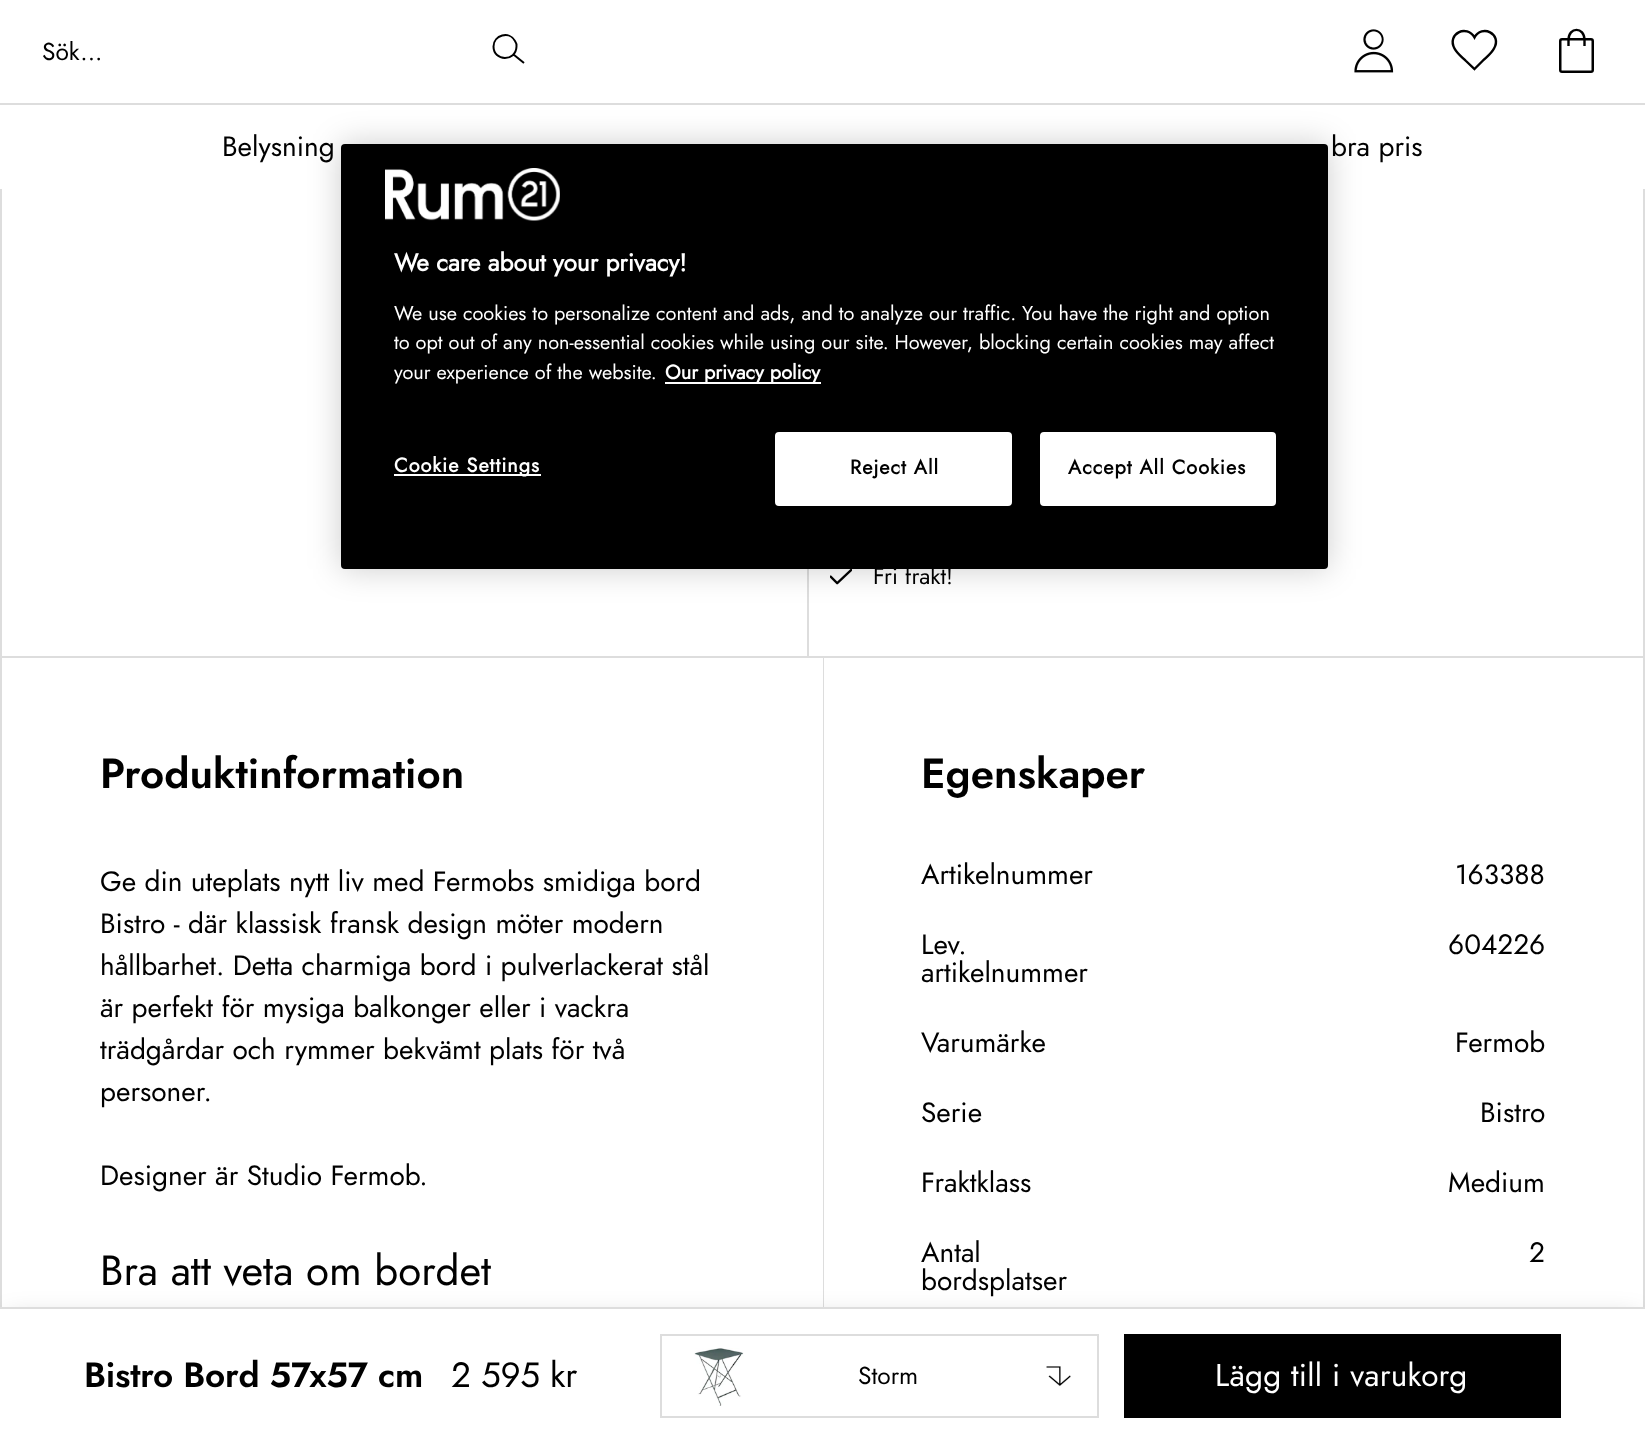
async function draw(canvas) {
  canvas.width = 1645;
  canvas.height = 1441;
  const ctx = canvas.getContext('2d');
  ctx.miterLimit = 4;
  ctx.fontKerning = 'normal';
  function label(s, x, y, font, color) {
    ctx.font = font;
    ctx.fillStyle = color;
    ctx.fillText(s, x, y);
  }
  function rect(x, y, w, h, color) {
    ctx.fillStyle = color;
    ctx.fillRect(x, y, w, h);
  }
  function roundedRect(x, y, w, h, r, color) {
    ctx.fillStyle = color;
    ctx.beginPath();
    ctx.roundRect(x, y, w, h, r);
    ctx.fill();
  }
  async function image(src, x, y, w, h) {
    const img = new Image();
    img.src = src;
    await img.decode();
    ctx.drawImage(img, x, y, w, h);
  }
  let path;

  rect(0, 0, 1645, 1441, '#fff');
  rect(0, 103, 1645, 2, '#ddd');
  label('Sök...', 42, 60, '24.5px Jost', '#000');
  path = new Path2D('M493.5 46.5C493.5 35 509.5 30.5 515 41C516 42.5 517 44.5 516.5 46.5C516 62 493.5 61.5 493.5 46.5ZM513.5 54.5L524 63Z');
  ctx.strokeStyle = '#000';
  ctx.lineWidth = 2;
  ctx.stroke(path);
  await image('assets/img1.png', 1354, 29, 40, 44);
  path = new Path2D('M1474.5 69L1482.5 61C1486.5 57 1491.5 53.5 1494 48.5C1502.5 33.5 1481.5 24 1474.5 37.5C1467 24 1446.5 33.5 1454.5 48.5C1457 53.5 1462 57 1466 61Z');
  ctx.lineWidth = 2.4;
  ctx.stroke(path);
  path = new Path2D('M1568.5 46V40C1568.5 26.5 1584.5 26.5 1584.5 40V46');
  ctx.stroke(path);
  ctx.beginPath();
  ctx.roundRect(1560.25, 39.25, 32.5, 32.5, 1.75);
  ctx.lineWidth = 2.5;
  ctx.stroke();
  label('Belysning', 222, 156, '28px Jost', '#000');
  label('bra pris', 1331, 156, '28px Jost', '#000');
  rect(1643, 189, 2, 467, '#ddd');
  rect(0, 189, 2, 467, '#ddd');
  rect(807, 569, 2, 87, '#ddd');
  await image('assets/img2.png', 830, 569, 22, 16);
  label('Fri frakt!', 873, 584, '23px Jost', '#000');
  rect(0, 656, 1645, 651, '#ddd');
  rect(2, 658, 821, 649, '#fff');
  rect(824, 658, 819, 649, '#fff');
  ctx.fillStyle = '#00000040';
  ctx.filter = 'blur(14px)';
  ctx.beginPath();
  ctx.rect(7, 1321, 1631, 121);
  ctx.fill();
  ctx.filter = 'none';
  rect(0, 1309, 1645, 132, '#fff');
  rect(0, 1307, 1645, 2, '#ddd');
  ctx.letterSpacing = '-0.25px';
  label('Bistro Bord 57x57 cm', 84, 1387, '600 35px Jost', '#000');
  label('2 595 kr', 451, 1387, '35px Jost', '#000');
  ctx.strokeStyle = '#ddd';
  ctx.lineWidth = 2;
  ctx.strokeRect(661, 1335, 437, 82);
  await image('assets/img3.png', 694, 1348, 50, 58);
  ctx.letterSpacing = '0px';
  label('Storm', 858, 1384, '24.5px Jost', '#000');
  await image('assets/img4.png', 1046, 1366, 25, 21);
  rect(1124, 1334, 437, 84, '#000');
  ctx.letterSpacing = '0.25px';
  label('Lägg till i varukorg', 1215, 1386, '31.5px Jost', '#fff');
  ctx.letterSpacing = '0px';
  label('Produktinformation', 100, 788, '600 42px Jost', '#000');
  label('Ge din uteplats nytt liv med Fermobs smidiga bord', 100, 891, '28px Jost', '#000');
  label('Bistro - där klassisk fransk design möter modern', 100, 933, '28px Jost', '#000');
  label('hållbarhet. Detta charmiga bord i pulverlackerat stål', 100, 975, '28px Jost', '#000');
  label('är perfekt för mysiga balkonger eller i vackra', 100, 1017, '28px Jost', '#000');
  label('trädgårdar och rymmer bekvämt plats för två', 100, 1059, '28px Jost', '#000');
  label('personer.', 100, 1101, '28px Jost', '#000');
  label('Designer är Studio Fermob.', 100, 1185, '28px Jost', '#000');
  label('Bra att veta om bordet', 100, 1285, '42px Jost', '#000');
  label('Egenskaper', 921, 788, '600 42px Jost', '#000');
  label('Artikelnummer', 921, 884, '28px Jost', '#000');
  label('163388', 1455, 884, '28px Jost', '#000');
  label('Lev.', 921, 954, '28px Jost', '#000');
  label('artikelnummer', 921, 982, '28px Jost', '#000');
  label('604226', 1448, 954, '28px Jost', '#000');
  label('Varumärke', 921, 1052, '28px Jost', '#000');
  label('Fermob', 1455, 1052, '28px Jost', '#000');
  label('Serie', 921, 1122, '28px Jost', '#000');
  label('Bistro', 1480, 1122, '28px Jost', '#000');
  label('Fraktklass', 921, 1192, '28px Jost', '#000');
  label('Medium', 1448, 1192, '28px Jost', '#000');
  label('Antal', 921, 1262, '28px Jost', '#000');
  label('bordsplatser', 921, 1290, '28px Jost', '#000');
  label('2', 1529, 1262, '28px Jost', '#000');
  ctx.fillStyle = '#00000033';
  ctx.filter = 'blur(16px)';
  ctx.beginPath();
  ctx.roundRect(341, 144, 987, 425, 4);
  ctx.fill();
  ctx.filter = 'none';
  roundedRect(341, 144, 987, 425, 4, '#000');
  await image('assets/img5.png', 385, 168, 175, 53);
  label('We care about your privacy!', 394, 271, 'bold 24.5px Jost', '#fff');
  label('We use cookies to personalize content and ads, and to analyze our traffic. You have the right and option', 394, 320, '19.9px Jost', '#fff');
  label('to opt out of any non-essential cookies while using our site. However, blocking certain cookies may affect', 394, 349, '19.9px Jost', '#fff');
  label('your experience of the website.', 394, 379, '19.9px Jost', '#fff');
  rect(665, 382, 156, 2, '#fff');
  label('Our privacy policy', 665, 379, 'bold 19.9px Jost', '#fff');
  rect(394, 474, 147, 2, '#fff');
  ctx.letterSpacing = '1px';
  label('Cookie Settings', 394, 472, 'bold 19.9px Jost', '#fff');
  ctx.beginPath();
  ctx.roundRect(776, 433, 235, 72, 3);
  ctx.fill();
  ctx.strokeStyle = '#fff';
  ctx.stroke();
  label('Reject All', 850, 474, 'bold 19.9px Jost', '#000');
  ctx.fillStyle = '#fff';
  ctx.beginPath();
  ctx.roundRect(1041, 433, 234, 72, 3);
  ctx.fill();
  ctx.stroke();
  label('Accept All Cookies', 1068, 474, 'bold 19.9px Jost', '#000');
}

draw(document.querySelector('canvas'));
